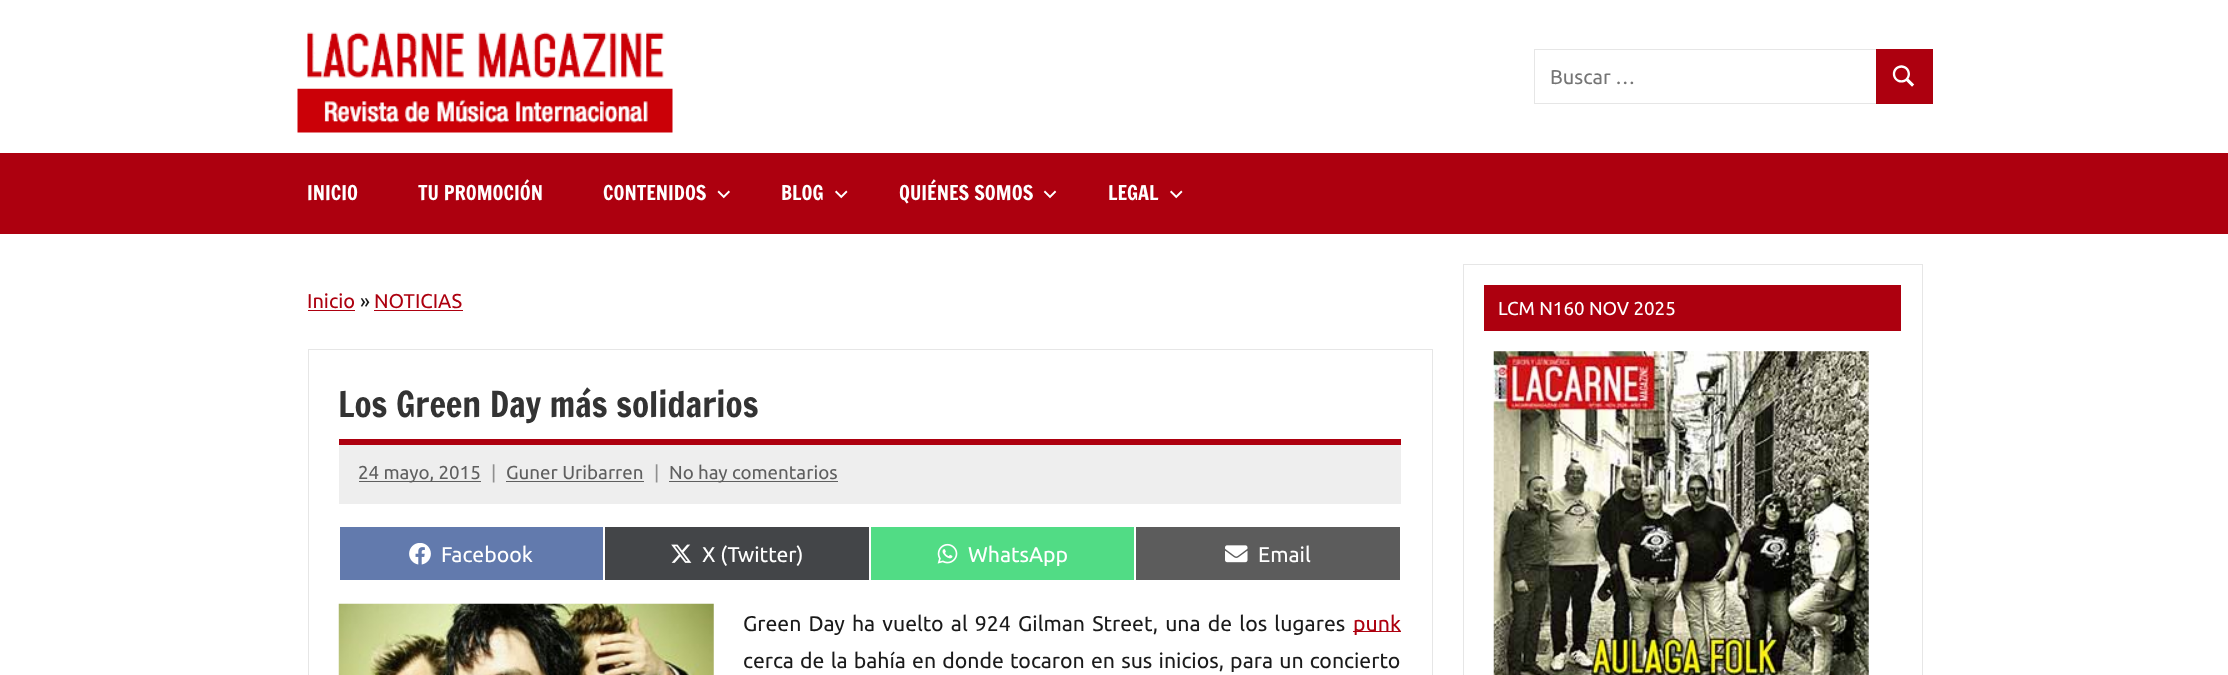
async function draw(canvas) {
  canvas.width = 2228;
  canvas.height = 675;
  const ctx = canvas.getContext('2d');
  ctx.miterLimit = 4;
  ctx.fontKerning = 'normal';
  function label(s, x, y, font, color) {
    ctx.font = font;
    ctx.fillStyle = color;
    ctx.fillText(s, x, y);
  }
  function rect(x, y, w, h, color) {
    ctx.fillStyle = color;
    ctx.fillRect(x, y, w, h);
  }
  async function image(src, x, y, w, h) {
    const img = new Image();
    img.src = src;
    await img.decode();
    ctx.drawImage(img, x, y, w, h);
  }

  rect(0, 0, 2228, 675, '#fff');
  await image('assets/img1.png', 297, 32, 376, 101);
  ctx.strokeStyle = '#e6e6e6';
  ctx.strokeRect(1534.5, 49.5, 343, 54);
  label('Buscar …', 1550, 84, '20px Ubuntu', '#757575');
  rect(1876, 49, 57, 55, '#ad000f');
  await image('assets/img2.png', 1892, 65, 23, 22);
  rect(0, 153, 2228, 81, '#ad000f');
  label('INICIO', 307, 200, '20px Francois One', '#fff');
  label('TU PROMOCIÓN', 418, 200, '20px Francois One', '#fff');
  label('CONTENIDOS', 603, 200, '20px Francois One', '#fff');
  await image('assets/img3.png', 717, 190, 13, 9);
  label('BLOG', 781, 200, '20px Francois One', '#fff');
  await image('assets/img4.png', 835, 190, 13, 9);
  label('QUIÉNES SOMOS', 899, 200, '20px Francois One', '#fff');
  await image('assets/img5.png', 1043, 190, 14, 9);
  label('LEGAL', 1108, 200, '20px Francois One', '#fff');
  await image('assets/img4.png', 1170, 190, 13, 9);
  label('Inicio', 307, 308, '20px Ubuntu', '#ad000f');
  rect(308, 310, 47, 1, '#ad000f');
  label('»', 360, 308, '20px Ubuntu', '#1a1a1a');
  label('NOTICIAS', 374, 308, '20px Ubuntu', '#ad000f');
  rect(374, 310, 89, 1, '#ad000f');
  ctx.strokeRect(308.5, 349.5, 1124, 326);
  rect(339, 439, 1062, 6, '#ad000f');
  label('Los Green Day más solidarios', 338, 417, '35px Francois One', '#333');
  rect(339, 445, 1062, 59, '#eee');
  rect(359, 481, 122, 1, '#5f5f5f');
  label('24 mayo, 2015', 358, 479, '18.75px Ubuntu', '#5f5f5f');
  label('|', 491, 479, '18.75px Ubuntu', '#8f8f8f');
  label('Guner Uribarren', 506, 479, '18.75px Ubuntu', '#5f5f5f');
  rect(506, 481, 138, 1, '#5f5f5f');
  label('|', 654, 479, '18.75px Ubuntu', '#8f8f8f');
  rect(669, 481, 169, 1, '#5f5f5f');
  label('No hay comentarios', 669, 479, '18.75px Ubuntu', '#5f5f5f');
  rect(340, 527, 263, 53, '#627aad');
  await image('assets/img6.png', 409, 543, 22, 22);
  label('Facebook', 441, 562, '21.25px Ubuntu', '#fff');
  rect(605, 527, 264, 53, '#434548');
  await image('assets/img7.png', 671, 544, 21, 19);
  label('X (Twitter)', 702, 562, '21.25px Ubuntu', '#fff');
  rect(871, 527, 263, 53, '#51dc85');
  await image('assets/img8.png', 937, 543, 21, 21);
  label('WhatsApp', 968, 562, '21.25px Ubuntu', '#fff');
  rect(1136, 527, 264, 53, '#5c5c5c');
  await image('assets/img9.png', 1225, 545, 23, 18);
  label('Email', 1258, 562, '21.25px Ubuntu', '#fff');
  await image('assets/img10.png', 338, 603, 376, 72);
  ctx.wordSpacing = '2.25px';
  label('Green Day ha vuelto al 924 Gilman Street, una de los lugares', 743, 631, '21.25px Ubuntu', '#1a1a1a');
  rect(1353, 631, 48, 1, '#ad000f');
  ctx.wordSpacing = '0px';
  label('punk', 1353, 631, '21.25px Ubuntu', '#ad000f');
  ctx.wordSpacing = '1.25px';
  label('cerca de la bahía en donde tocaron en sus inicios, para un concierto', 743, 668, '21.25px Ubuntu', '#1a1a1a');
  ctx.strokeRect(1463.5, 264.5, 459, 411);
  rect(1484, 285, 417, 46, '#ad000f');
  ctx.wordSpacing = '0px';
  label('LCM N160 NOV 2025', 1498, 315, '18.75px Ubuntu', '#fff');
  await image('assets/img11.png', 1493, 351, 376, 324);
}

draw(document.querySelector('canvas'));
